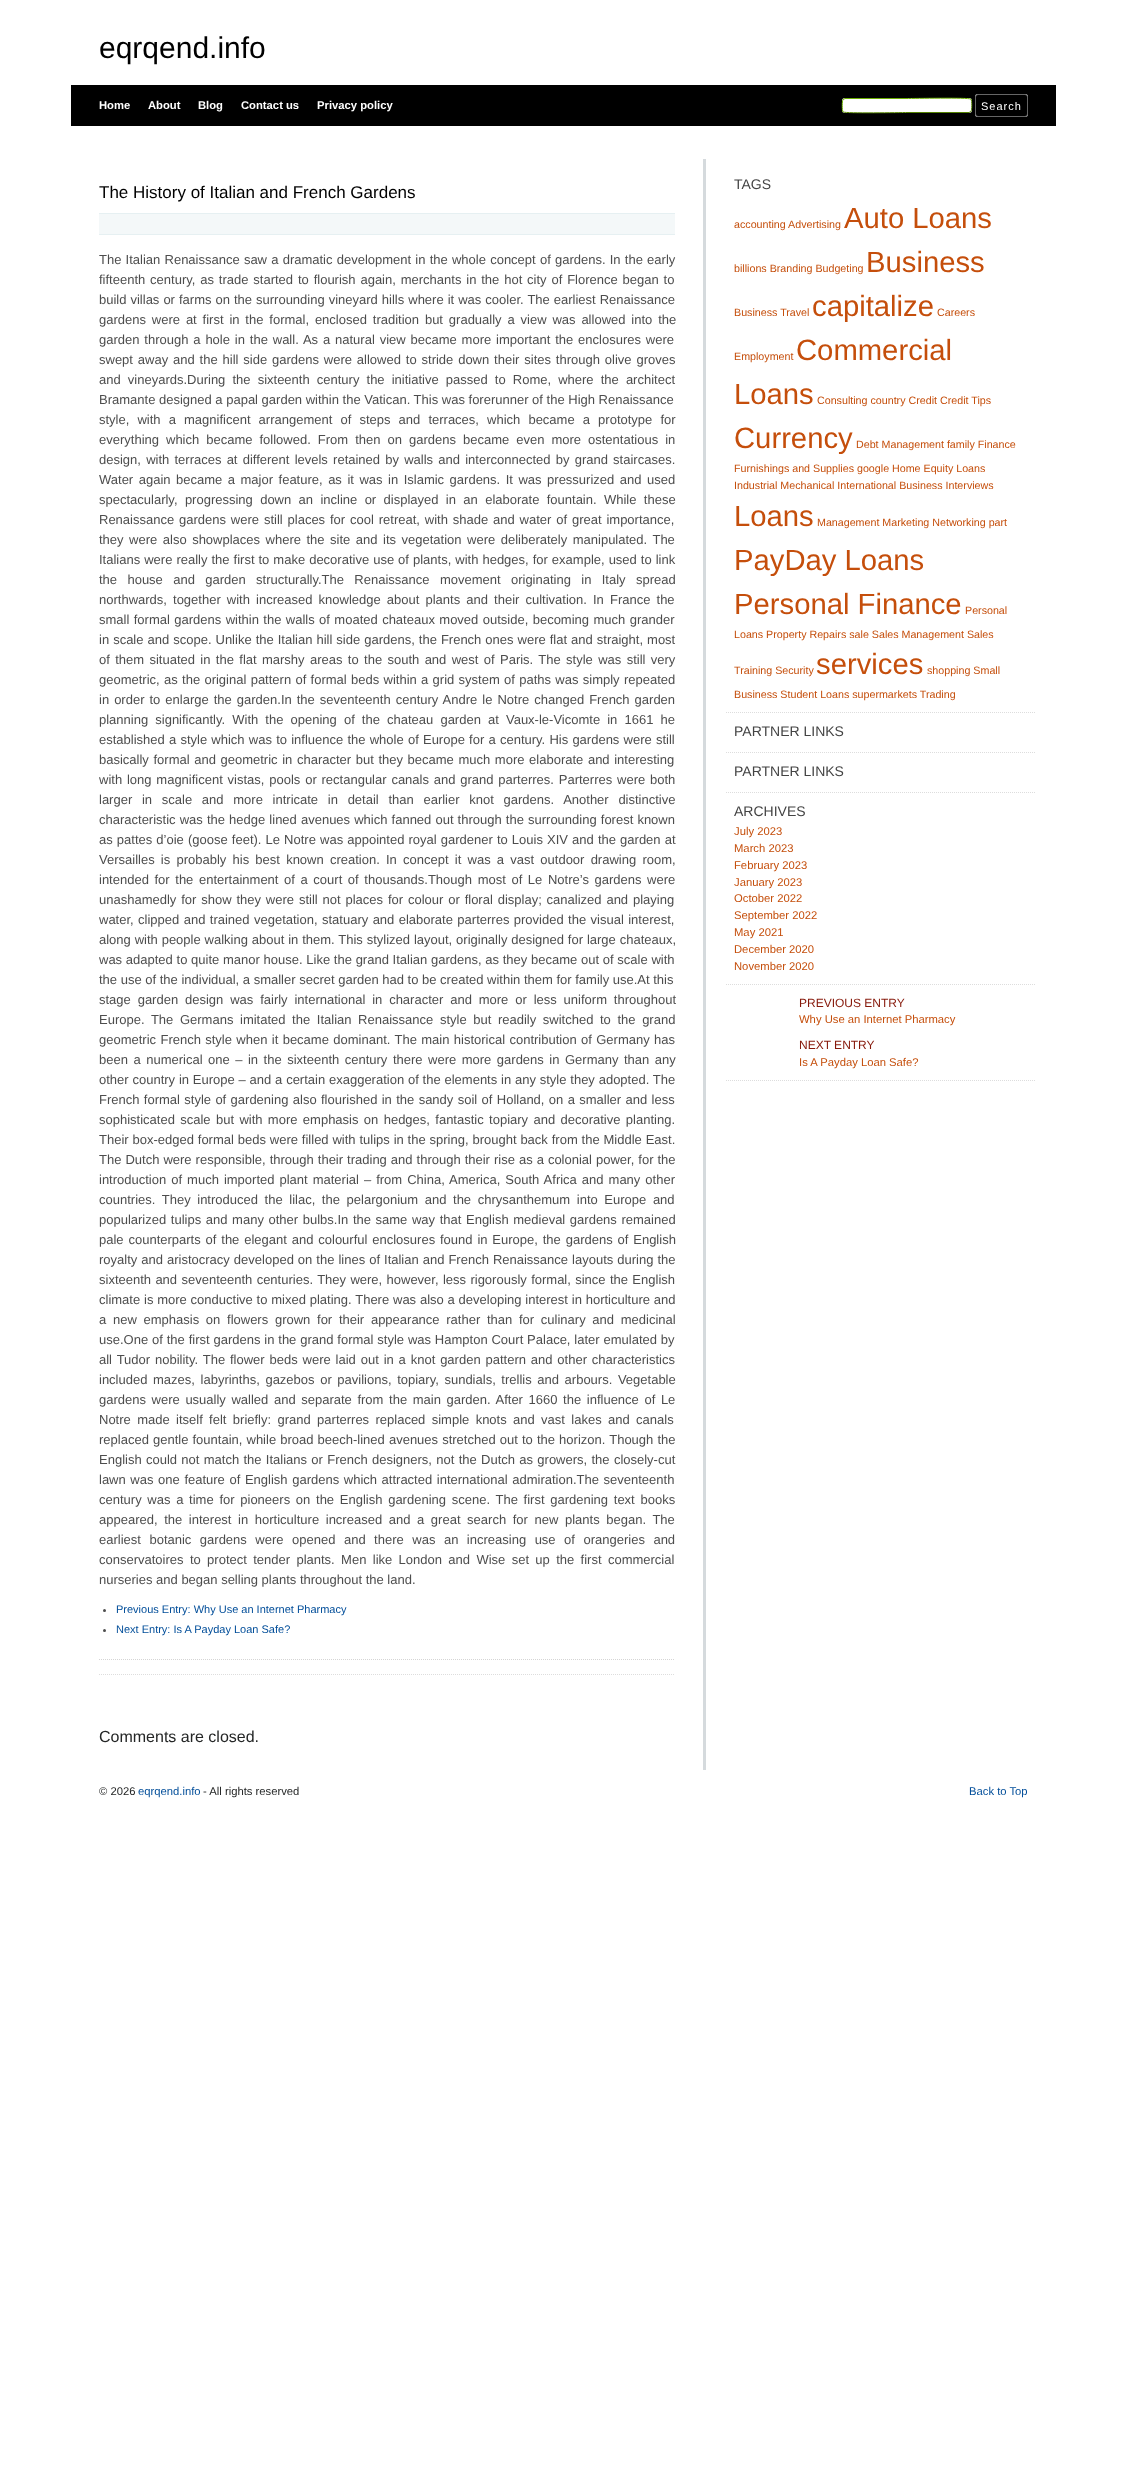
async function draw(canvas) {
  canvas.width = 1126;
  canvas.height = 2470;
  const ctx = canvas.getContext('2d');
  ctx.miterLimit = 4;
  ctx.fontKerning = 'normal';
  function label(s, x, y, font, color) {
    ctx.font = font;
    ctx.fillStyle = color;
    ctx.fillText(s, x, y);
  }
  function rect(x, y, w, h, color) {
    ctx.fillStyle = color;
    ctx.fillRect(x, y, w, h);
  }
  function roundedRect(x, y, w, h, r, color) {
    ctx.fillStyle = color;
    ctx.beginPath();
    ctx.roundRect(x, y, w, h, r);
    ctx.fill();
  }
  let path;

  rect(0, 0, 1126, 2470, '#fff');
  label('eqrqend.info', 99, 58, '30px Liberation Sans', '#000');
  rect(71, 85, 985, 41, '#000');
  label('Home', 99, 109, 'bold 11.25px Liberation Sans', '#fff');
  label('About', 148, 109, 'bold 11.25px Liberation Sans', '#fff');
  label('Blog', 198, 109, 'bold 11.25px Liberation Sans', '#fff');
  label('Contact us', 241, 109, 'bold 11.25px Liberation Sans', '#fff');
  label('Privacy policy', 317, 109, 'bold 11.25px Liberation Sans', '#fff');
  roundedRect(842, 98, 130, 15, 3, '#fff');
  path = new Path2D('M971 99C972 100.5 972 110 971 111.5L969 112.5H907C900.5 112.5 845.5 113.5 843.5 112H843');
  ctx.strokeStyle = '#548301';
  ctx.stroke(path);
  path = new Path2D('M843 112C842 110.5 842 101 843 99.5L845 98.5H907C913.5 98.5 968.5 97.5 970.5 99H971');
  ctx.strokeStyle = '#69ab01';
  ctx.stroke(path);
  ctx.filter = 'blur(0.5px)';
  ctx.beginPath();
  ctx.roundRect(975, 94, 53, 23, 3);
  ctx.fill();
  ctx.filter = 'none';
  ctx.fillStyle = '#000';
  ctx.beginPath();
  ctx.roundRect(975.5, 94.5, 52, 22, 2.5);
  ctx.fill();
  ctx.strokeStyle = '#666';
  ctx.stroke();
  ctx.letterSpacing = '1px';
  label('Search', 981, 110, '11px Liberation Sans', '#fff');
  rect(703, 159, 3, 1611, '#d5dadd');
  ctx.letterSpacing = '0px';
  label('The History of Italian and French Gardens', 99, 198, '17px Liberation Sans', '#000');
  rect(99, 214, 576, 20, '#f4f8f9');
  rect(99, 213, 576, 1, '#e6f0f2');
  rect(99, 234, 576, 1, '#e6f0f2');
  ctx.wordSpacing = '0.6px';
  label('The Italian Renaissance saw a dramatic development in the whole concept of gardens. In the early', 99, 264, '13px Liberation Sans', '#4d4d4d');
  ctx.wordSpacing = '1.25px';
  label('fifteenth century, as trade started to flourish again, merchants in the hot city of Florence began to', 99, 284, '13px Liberation Sans', '#4d4d4d');
  ctx.wordSpacing = '0.4px';
  label('build villas or farms on the surrounding vineyard hills where it was cooler. The earliest Renaissance', 99, 304, '13px Liberation Sans', '#4d4d4d');
  ctx.wordSpacing = '2.25px';
  label('gardens were at first in the formal, enclosed tradition but gradually a view was allowed into the', 99, 324, '13px Liberation Sans', '#4d4d4d');
  ctx.wordSpacing = '1.25px';
  label('garden through a hole in the wall. As a natural view became more important the enclosures were', 99, 344, '13px Liberation Sans', '#4d4d4d');
  label('swept away and the hill side gardens were allowed to stride down their sites through olive groves', 99, 364, '13px Liberation Sans', '#4d4d4d');
  ctx.wordSpacing = '3.5px';
  label('and vineyards.During the sixteenth century the initiative passed to Rome, where the architect', 99, 384, '13px Liberation Sans', '#4d4d4d');
  ctx.wordSpacing = '0px';
  label('Bramante designed a papal garden within the Vatican. This was forerunner of the High Renaissance', 99, 404, '13px Liberation Sans', '#4d4d4d');
  ctx.wordSpacing = '4.5px';
  label('style, with a magnificent arrangement of steps and terraces, which became a prototype for', 99, 424, '13px Liberation Sans', '#4d4d4d');
  ctx.wordSpacing = '3.4px';
  label('everything which became followed. From then on gardens became even more ostentatious in', 99, 444, '13px Liberation Sans', '#4d4d4d');
  ctx.wordSpacing = '1.6px';
  label('design, with terraces at different levels retained by walls and interconnected by grand staircases.', 99, 464, '13px Liberation Sans', '#4d4d4d');
  ctx.wordSpacing = '1.9px';
  label('Water again became a major feature, as it was in Islamic gardens. It was pressurized and used', 99, 484, '13px Liberation Sans', '#4d4d4d');
  ctx.wordSpacing = '3.75px';
  label('spectacularly, progressing down an incline or displayed in an elaborate fountain. While these', 99, 504, '13px Liberation Sans', '#4d4d4d');
  ctx.wordSpacing = '1.25px';
  label('Renaissance gardens were still places for cool retreat, with shade and water of great importance,', 99, 524, '13px Liberation Sans', '#4d4d4d');
  ctx.wordSpacing = '1.9px';
  label('they were also showplaces where the site and its vegetation were deliberately manipulated. The', 99, 544, '13px Liberation Sans', '#4d4d4d');
  ctx.wordSpacing = '0.4px';
  label('Italians were really the first to make decorative use of plants, with hedges, for example, used to link', 99, 564, '13px Liberation Sans', '#4d4d4d');
  ctx.wordSpacing = '6.75px';
  label('the house and garden structurally.The Renaissance movement originating in Italy spread', 99, 584, '13px Liberation Sans', '#4d4d4d');
  ctx.wordSpacing = '2.5px';
  label('northwards, together with increased knowledge about plants and their cultivation. In France the', 99, 604, '13px Liberation Sans', '#4d4d4d');
  ctx.wordSpacing = '0.8px';
  label('small formal gardens within the walls of moated chateaux moved outside, becoming much grander', 99, 624, '13px Liberation Sans', '#4d4d4d');
  ctx.wordSpacing = '0.4px';
  label('in scale and scope. Unlike the Italian hill side gardens, the French ones were flat and straight, most', 99, 644, '13px Liberation Sans', '#4d4d4d');
  ctx.wordSpacing = '1.75px';
  label('of them situated in the flat marshy areas to the south and west of Paris. The style was still very', 99, 664, '13px Liberation Sans', '#4d4d4d');
  ctx.wordSpacing = '0.7px';
  label('geometric, as the original pattern of formal beds within a grid system of paths was simply repeated', 99, 684, '13px Liberation Sans', '#4d4d4d');
  ctx.wordSpacing = '1.4px';
  label('in order to enlarge the garden.In the seventeenth century Andre le Notre changed French garden', 99, 704, '13px Liberation Sans', '#4d4d4d');
  ctx.wordSpacing = '3.5px';
  label('planning significantly. With the opening of the chateau garden at Vaux-le-Vicomte in 1661 he', 99, 724, '13px Liberation Sans', '#4d4d4d');
  ctx.wordSpacing = '0.6px';
  label('established a style which was to influence the whole of Europe for a century. His gardens were still', 99, 744, '13px Liberation Sans', '#4d4d4d');
  ctx.wordSpacing = '1px';
  label('basically formal and geometric in character but they became much more elaborate and interesting', 99, 764, '13px Liberation Sans', '#4d4d4d');
  ctx.wordSpacing = '1.2px';
  label('with long magnificent vistas, pools or rectangular canals and grand parterres. Parterres were both', 99, 784, '13px Liberation Sans', '#4d4d4d');
  ctx.wordSpacing = '6.1px';
  label('larger in scale and more intricate in detail than earlier knot gardens. Another distinctive', 99, 804, '13px Liberation Sans', '#4d4d4d');
  ctx.wordSpacing = '0.5px';
  label('characteristic was the hedge lined avenues which fanned out through the surrounding forest known', 99, 824, '13px Liberation Sans', '#4d4d4d');
  label('as pattes d’oie (goose feet). Le Notre was appointed royal gardener to Louis XIV and the garden at', 99, 844, '13px Liberation Sans', '#4d4d4d');
  ctx.wordSpacing = '2.6px';
  label('Versailles is probably his best known creation. In concept it was a vast outdoor drawing room,', 99, 864, '13px Liberation Sans', '#4d4d4d');
  ctx.wordSpacing = '2px';
  label('intended for the entertainment of a court of thousands.Though most of Le Notre’s gardens were', 99, 884, '13px Liberation Sans', '#4d4d4d');
  ctx.wordSpacing = '1.25px';
  label('unashamedly for show they were still not places for colour or floral display; canalized and playing', 99, 904, '13px Liberation Sans', '#4d4d4d');
  ctx.wordSpacing = '0.8px';
  label('water, clipped and trained vegetation, statuary and elaborate parterres provided the visual interest,', 99, 924, '13px Liberation Sans', '#4d4d4d');
  ctx.wordSpacing = '0.25px';
  label('along with people walking about in them. This stylized layout, originally designed for large chateaux,', 99, 944, '13px Liberation Sans', '#4d4d4d');
  ctx.wordSpacing = '0.1px';
  label('was adapted to quite manor house. Like the grand Italian gardens, as they became out of scale with', 99, 964, '13px Liberation Sans', '#4d4d4d');
  ctx.wordSpacing = '0px';
  label('the use of the individual, a smaller secret garden had to be created within them for family use.At this', 99, 984, '13px Liberation Sans', '#4d4d4d');
  ctx.wordSpacing = '3.25px';
  label('stage garden design was fairly international in character and more or less uniform throughout', 99, 1004, '13px Liberation Sans', '#4d4d4d');
  ctx.wordSpacing = '3px';
  label('Europe. The Germans imitated the Italian Renaissance style but readily switched to the grand', 99, 1024, '13px Liberation Sans', '#4d4d4d');
  ctx.wordSpacing = '0.75px';
  label('geometric French style when it became dominant. The main historical contribution of Germany has', 99, 1044, '13px Liberation Sans', '#4d4d4d');
  ctx.wordSpacing = '1.9px';
  label('been a numerical one – in the sixteenth century there were more gardens in Germany than any', 99, 1064, '13px Liberation Sans', '#4d4d4d');
  ctx.wordSpacing = '0.2px';
  label('other country in Europe – and a certain exaggeration of the elements in any style they adopted. The', 99, 1084, '13px Liberation Sans', '#4d4d4d');
  ctx.wordSpacing = '0.75px';
  label('French formal style of gardening also flourished in the sandy soil of Holland, on a smaller and less', 99, 1104, '13px Liberation Sans', '#4d4d4d');
  ctx.wordSpacing = '1.75px';
  label('sophisticated scale but with more emphasis on hedges, fantastic topiary and decorative planting.', 99, 1124, '13px Liberation Sans', '#4d4d4d');
  ctx.wordSpacing = '0.25px';
  label('Their box-edged formal beds were filled with tulips in the spring, brought back from the Middle East.', 99, 1144, '13px Liberation Sans', '#4d4d4d');
  ctx.wordSpacing = '0.4px';
  label('The Dutch were responsible, through their trading and through their rise as a colonial power, for the', 99, 1164, '13px Liberation Sans', '#4d4d4d');
  ctx.wordSpacing = '1.4px';
  label('introduction of much imported plant material – from China, America, South Africa and many other', 99, 1184, '13px Liberation Sans', '#4d4d4d');
  ctx.wordSpacing = '3px';
  label('countries. They introduced the lilac, the pelargonium and the chrysanthemum into Europe and', 99, 1204, '13px Liberation Sans', '#4d4d4d');
  ctx.wordSpacing = '1px';
  label('popularized tulips and many other bulbs.In the same way that English medieval gardens remained', 99, 1224, '13px Liberation Sans', '#4d4d4d');
  ctx.wordSpacing = '1.25px';
  label('pale counterparts of the elegant and colourful enclosures found in Europe, the gardens of English', 99, 1244, '13px Liberation Sans', '#4d4d4d');
  ctx.wordSpacing = '0.4px';
  label('royalty and aristocracy developed on the lines of Italian and French Renaissance layouts during the', 99, 1264, '13px Liberation Sans', '#4d4d4d');
  ctx.wordSpacing = '0.75px';
  label('sixteenth and seventeenth centuries. They were, however, less rigorously formal, since the English', 99, 1284, '13px Liberation Sans', '#4d4d4d');
  ctx.wordSpacing = '0.2px';
  label('climate is more conductive to mixed plating. There was also a developing interest in horticulture and', 99, 1304, '13px Liberation Sans', '#4d4d4d');
  ctx.wordSpacing = '3.1px';
  label('a new emphasis on flowers grown for their appearance rather than for culinary and medicinal', 99, 1324, '13px Liberation Sans', '#4d4d4d');
  ctx.wordSpacing = '0.25px';
  label('use.One of the first gardens in the grand formal style was Hampton Court Palace, later emulated by', 99, 1344, '13px Liberation Sans', '#4d4d4d');
  ctx.wordSpacing = '1.25px';
  label('all Tudor nobility. The flower beds were laid out in a knot garden pattern and other characteristics', 99, 1364, '13px Liberation Sans', '#4d4d4d');
  ctx.wordSpacing = '2px';
  label('included mazes, labyrinths, gazebos or pavilions, topiary, sundials, trellis and arbours. Vegetable', 99, 1384, '13px Liberation Sans', '#4d4d4d');
  label('gardens were usually walled and separate from the main garden. After 1660 the influence of Le', 99, 1404, '13px Liberation Sans', '#4d4d4d');
  ctx.wordSpacing = '2.75px';
  label('Notre made itself felt briefly: grand parterres replaced simple knots and vast lakes and canals', 99, 1424, '13px Liberation Sans', '#4d4d4d');
  ctx.wordSpacing = '0.5px';
  label('replaced gentle fountain, while broad beech-lined avenues stretched out to the horizon. Though the', 99, 1444, '13px Liberation Sans', '#4d4d4d');
  ctx.wordSpacing = '0.7px';
  label('English could not match the Italians or French designers, not the Dutch as growers, the closely-cut', 99, 1464, '13px Liberation Sans', '#4d4d4d');
  ctx.wordSpacing = '1px';
  label('lawn was one feature of English gardens which attracted international admiration.The seventeenth', 99, 1484, '13px Liberation Sans', '#4d4d4d');
  ctx.wordSpacing = '2.1px';
  label('century was a time for pioneers on the English gardening scene. The first gardening text books', 99, 1504, '13px Liberation Sans', '#4d4d4d');
  ctx.wordSpacing = '3px';
  label('appeared, the interest in horticulture increased and a great search for new plants began. The', 99, 1524, '13px Liberation Sans', '#4d4d4d');
  ctx.wordSpacing = '4.9px';
  label('earliest botanic gardens were opened and there was an increasing use of orangeries and', 99, 1544, '13px Liberation Sans', '#4d4d4d');
  ctx.wordSpacing = '2.75px';
  label('conservatoires to protect tender plants. Men like London and Wise set up the first commercial', 99, 1564, '13px Liberation Sans', '#4d4d4d');
  ctx.wordSpacing = '0px';
  label('nurseries and began selling plants throughout the land.', 99, 1584, '13px Liberation Sans', '#4d4d4d');
  ctx.beginPath();
  ctx.arc(104.5, 1610.5, 1.5, 0, 2 * Math.PI);
  ctx.fill();
  label('Previous Entry: Why Use an Internet Pharmacy', 116, 1613, '11px Liberation Sans', '#004d99');
  ctx.fillStyle = '#4d4d4d';
  ctx.beginPath();
  ctx.arc(104.5, 1630.5, 1.5, 0, 2 * Math.PI);
  ctx.fill();
  label('Next Entry: Is A Payday Loan Safe?', 116, 1633, '11px Liberation Sans', '#004d99');
  path = new Path2D('M99 1659.5H675');
  ctx.strokeStyle = '#d5d5d5';
  ctx.setLineDash([1, 1]);
  ctx.stroke(path);
  path = new Path2D('M99 1674.5H675');
  ctx.strokeStyle = '#ddd';
  ctx.stroke(path);
  label('Comments are closed.', 99, 1742, '16px Liberation Sans', '#242626');
  path = new Path2D('M726 712.5H1036');
  ctx.stroke(path);
  label('TAGS', 734, 189, '14px Liberation Sans', '#434343');
  label('accounting Advertising', 734, 228, '10.7px Liberation Sans', '#c54e0b');
  label('Auto Loans', 844, 228, '29.25px Liberation Sans', '#c54e0b');
  label('billions Branding Budgeting', 734, 272, '10.7px Liberation Sans', '#c54e0b');
  label('Business', 866, 272, '29.25px Liberation Sans', '#c54e0b');
  label('Business Travel', 734, 316, '10.7px Liberation Sans', '#c54e0b');
  label('capitalize', 812, 316, '29.25px Liberation Sans', '#c54e0b');
  label('Careers', 937, 316, '10.7px Liberation Sans', '#c54e0b');
  label('Employment', 734, 360, '10.7px Liberation Sans', '#c54e0b');
  label('Commercial', 796, 360, '29.25px Liberation Sans', '#c54e0b');
  label('Loans', 734, 404, '29.25px Liberation Sans', '#c54e0b');
  label('Consulting country Credit Credit Tips', 817, 404, '10.7px Liberation Sans', '#c54e0b');
  label('Currency', 734, 448, '29.25px Liberation Sans', '#c54e0b');
  label('Debt Management family Finance', 856, 448, '10.7px Liberation Sans', '#c54e0b');
  label('Furnishings and Supplies google Home Equity Loans', 734, 472, '10.7px Liberation Sans', '#c54e0b');
  label('Industrial Mechanical International Business Interviews', 734, 489, '10.7px Liberation Sans', '#c54e0b');
  label('Loans', 734, 526, '29.25px Liberation Sans', '#c54e0b');
  label('Management Marketing Networking part', 817, 526, '10.7px Liberation Sans', '#c54e0b');
  label('PayDay Loans', 734, 570, '29.25px Liberation Sans', '#c54e0b');
  label('Personal Finance', 734, 614, '29.25px Liberation Sans', '#c54e0b');
  label('Personal', 965, 614, '10.7px Liberation Sans', '#c54e0b');
  label('Loans Property Repairs sale Sales Management Sales', 734, 638, '10.7px Liberation Sans', '#c54e0b');
  label('Training Security', 734, 674, '10.7px Liberation Sans', '#c54e0b');
  label('services', 816, 674, '29.25px Liberation Sans', '#c54e0b');
  label('shopping Small', 927, 674, '10.7px Liberation Sans', '#c54e0b');
  label('Business Student Loans supermarkets Trading', 734, 698, '10.7px Liberation Sans', '#c54e0b');
  path = new Path2D('M726 752.5H1036');
  ctx.stroke(path);
  label('PARTNER LINKS', 734, 736, '14px Liberation Sans', '#434343');
  path = new Path2D('M726 792.5H1036');
  ctx.stroke(path);
  label('PARTNER LINKS', 734, 776, '14px Liberation Sans', '#434343');
  path = new Path2D('M726 984.5H1036');
  ctx.stroke(path);
  label('ARCHIVES', 734, 816, '14px Liberation Sans', '#434343');
  label('July 2023', 734, 835, '11.25px Liberation Sans', '#c54e0b');
  label('March 2023', 734, 852, '11.25px Liberation Sans', '#c54e0b');
  label('February 2023', 734, 869, '11.25px Liberation Sans', '#c54e0b');
  label('January 2023', 734, 886, '11.25px Liberation Sans', '#c54e0b');
  label('October 2022', 734, 902, '11.25px Liberation Sans', '#c54e0b');
  label('September 2022', 734, 919, '11.25px Liberation Sans', '#c54e0b');
  label('May 2021', 734, 936, '11.25px Liberation Sans', '#c54e0b');
  label('December 2020', 734, 953, '11.25px Liberation Sans', '#c54e0b');
  label('November 2020', 734, 970, '11.25px Liberation Sans', '#c54e0b');
  path = new Path2D('M726 1080.5H1036');
  ctx.stroke(path);
  label('PREVIOUS ENTRY', 799, 1007, '12px Liberation Sans', '#86180a');
  label('Why Use an Internet Pharmacy', 799, 1023, '11.25px Liberation Sans', '#c54e0b');
  label('NEXT ENTRY', 799, 1049, '12px Liberation Sans', '#86180a');
  label('Is A Payday Loan Safe?', 799, 1066, '11.25px Liberation Sans', '#c54e0b');
  label('© 2026', 99, 1795, '11.25px Liberation Sans', '#242626');
  label('eqrqend.info', 138, 1795, '11.25px Liberation Sans', '#004d99');
  label('- All rights reserved', 203, 1795, '11.25px Liberation Sans', '#242626');
  label('Back to Top', 969, 1795, '11.25px Liberation Sans', '#004d99');
}

draw(document.querySelector('canvas'));
